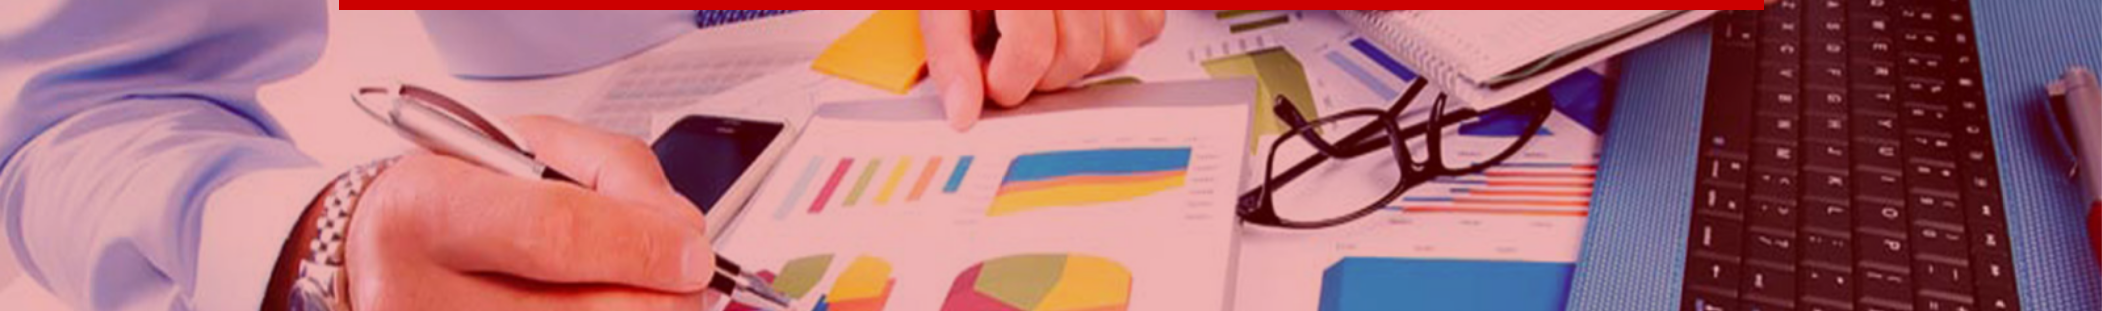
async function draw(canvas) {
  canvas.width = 2102;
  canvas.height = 311;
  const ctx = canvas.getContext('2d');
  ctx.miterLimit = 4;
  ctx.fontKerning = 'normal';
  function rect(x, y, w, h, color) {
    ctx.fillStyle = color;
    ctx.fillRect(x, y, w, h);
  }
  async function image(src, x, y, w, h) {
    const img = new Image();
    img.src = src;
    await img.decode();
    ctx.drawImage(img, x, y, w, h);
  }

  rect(0, 0, 2102, 311, '#fff');
  await image('assets/img1.png', 0, 0, 2102, 311);
  rect(339, 0, 1425, 10, '#c00');
}

draw(document.querySelector('canvas'));
